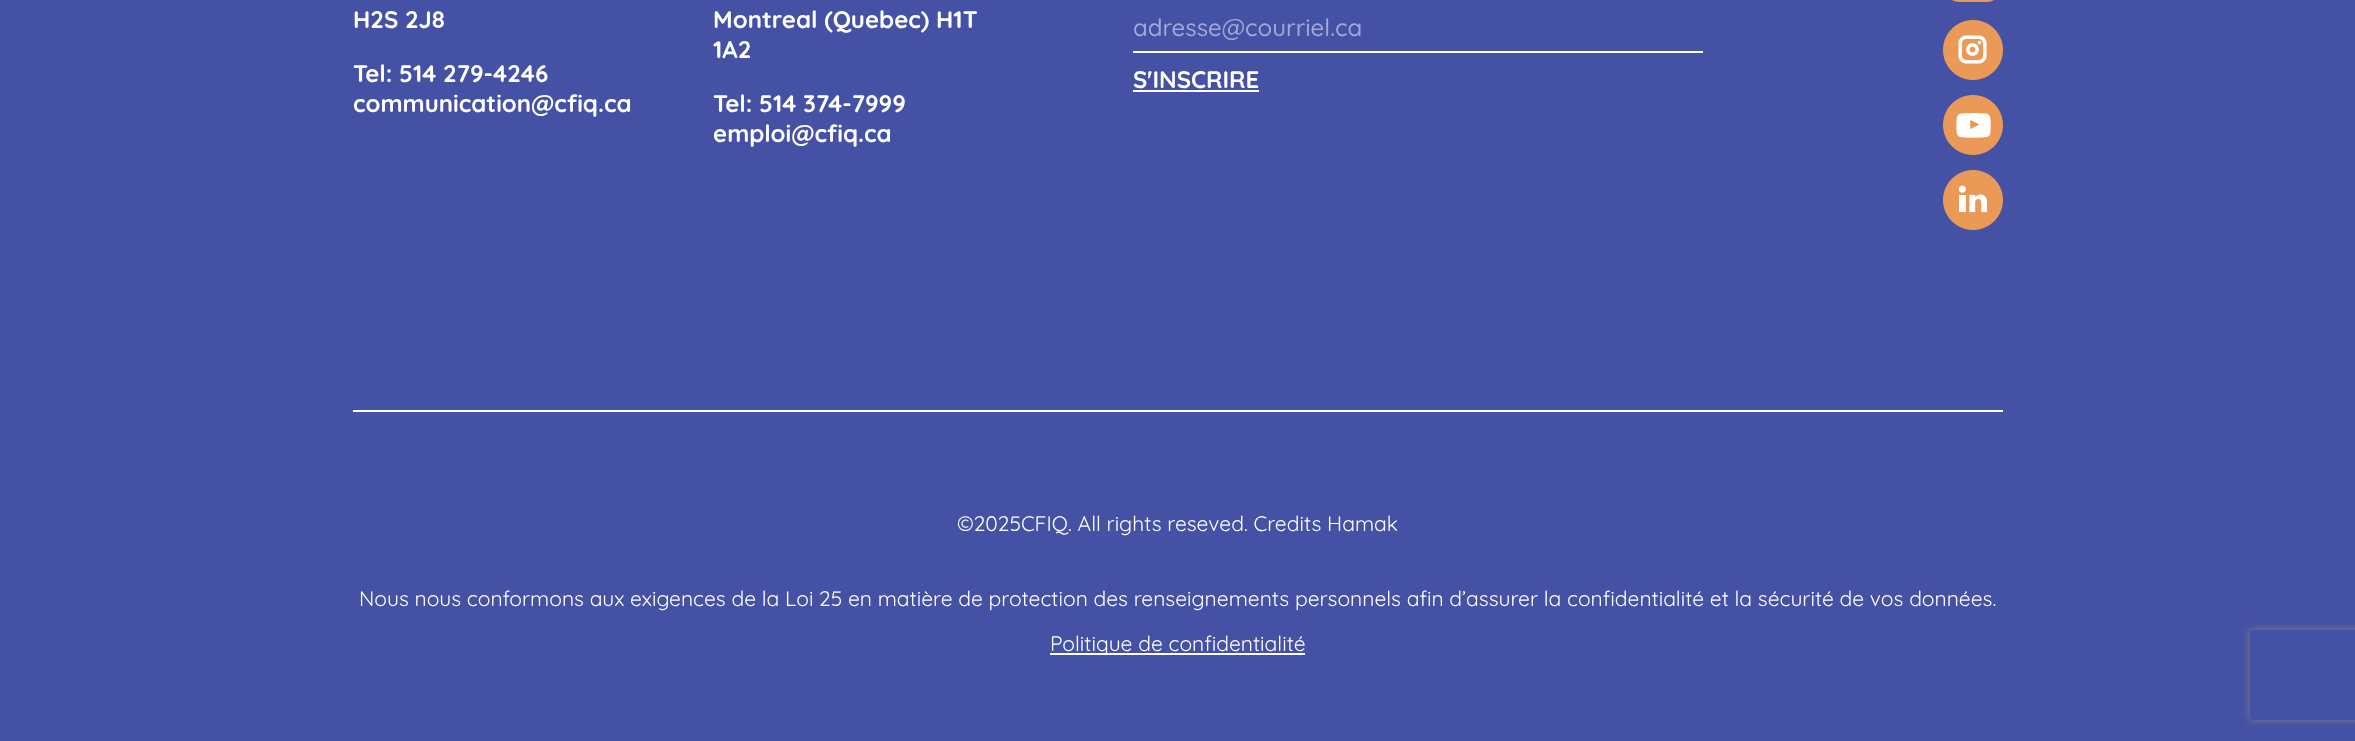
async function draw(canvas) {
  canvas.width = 2355;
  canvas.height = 741;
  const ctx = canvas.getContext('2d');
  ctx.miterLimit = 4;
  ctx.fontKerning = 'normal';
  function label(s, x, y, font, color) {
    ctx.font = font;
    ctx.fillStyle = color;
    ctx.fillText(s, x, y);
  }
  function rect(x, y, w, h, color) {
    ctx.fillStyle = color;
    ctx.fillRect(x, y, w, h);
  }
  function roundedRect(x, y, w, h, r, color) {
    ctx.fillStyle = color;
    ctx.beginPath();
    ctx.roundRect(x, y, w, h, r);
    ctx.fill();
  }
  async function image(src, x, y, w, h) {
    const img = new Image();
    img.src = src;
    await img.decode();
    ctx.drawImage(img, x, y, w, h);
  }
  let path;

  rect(0, 0, 2355, 741, '#4551a5');
  label('H2S 2J8', 353, 28, 'bold 24px Quicksand', '#fff');
  label('Tel: 514 279-4246', 353, 82, 'bold 24px Quicksand', '#fff');
  label('communication@cfiq.ca', 353, 112, 'bold 24px Quicksand', '#fff');
  label('Montreal (Quebec) H1T', 713, 28, 'bold 24px Quicksand', '#fff');
  label('1A2', 713, 58, 'bold 24px Quicksand', '#fff');
  label('Tel: 514 374-7999', 713, 112, 'bold 24px Quicksand', '#fff');
  label('emploi@cfiq.ca', 713, 142, 'bold 24px Quicksand', '#fff');
  rect(1133, 51, 570, 2, '#fff');
  label('adresse@courriel.ca', 1133, 36, '500 24px Quicksand', '#a2a8d2');
  label('S\'INSCRIRE', 1133, 88, 'bold 24px Quicksand', '#fff');
  rect(1133, 90, 126, 2, '#fff');
  roundedRect(1944, -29, 58, 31, 28.5, '#ea9a56');
  await image('assets/img1.png', 1943, 20, 60, 60);
  await image('assets/img2.png', 1943, 95, 60, 60);
  await image('assets/img3.png', 1943, 170, 60, 60);
  rect(353, 410, 1650, 2, '#fff');
  label('©2025CFIQ. All rights reseved. Credits Hamak', 957, 531, '21px Quicksand', '#fff');
  label('Nous nous conformons aux exigences de la Loi 25 en matière de protection des renseignements personnels afin d’assurer la confidentialité et la sécurité de vos données.', 359, 606, '21px Quicksand', '#fff');
  rect(1050, 653, 255, 2, '#fff');
  label('Politique de confidentialité', 1050, 651, '21px Quicksand', '#fff');
  ctx.save();
  path = new Path2D('M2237 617H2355V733H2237ZM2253 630H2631C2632.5 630 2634 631.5 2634 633V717C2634 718.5 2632.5 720 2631 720H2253C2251.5 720 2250 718.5 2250 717V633C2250 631.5 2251.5 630 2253 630Z');
  ctx.clip(path, 'evenodd');
  ctx.fillStyle = '#808080';
  ctx.filter = 'blur(4px)';
  ctx.beginPath();
  ctx.roundRect(2250, 630, 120, 90, 3);
  ctx.fill();
  ctx.filter = 'none';
  ctx.restore();
}

draw(document.querySelector('canvas'));
